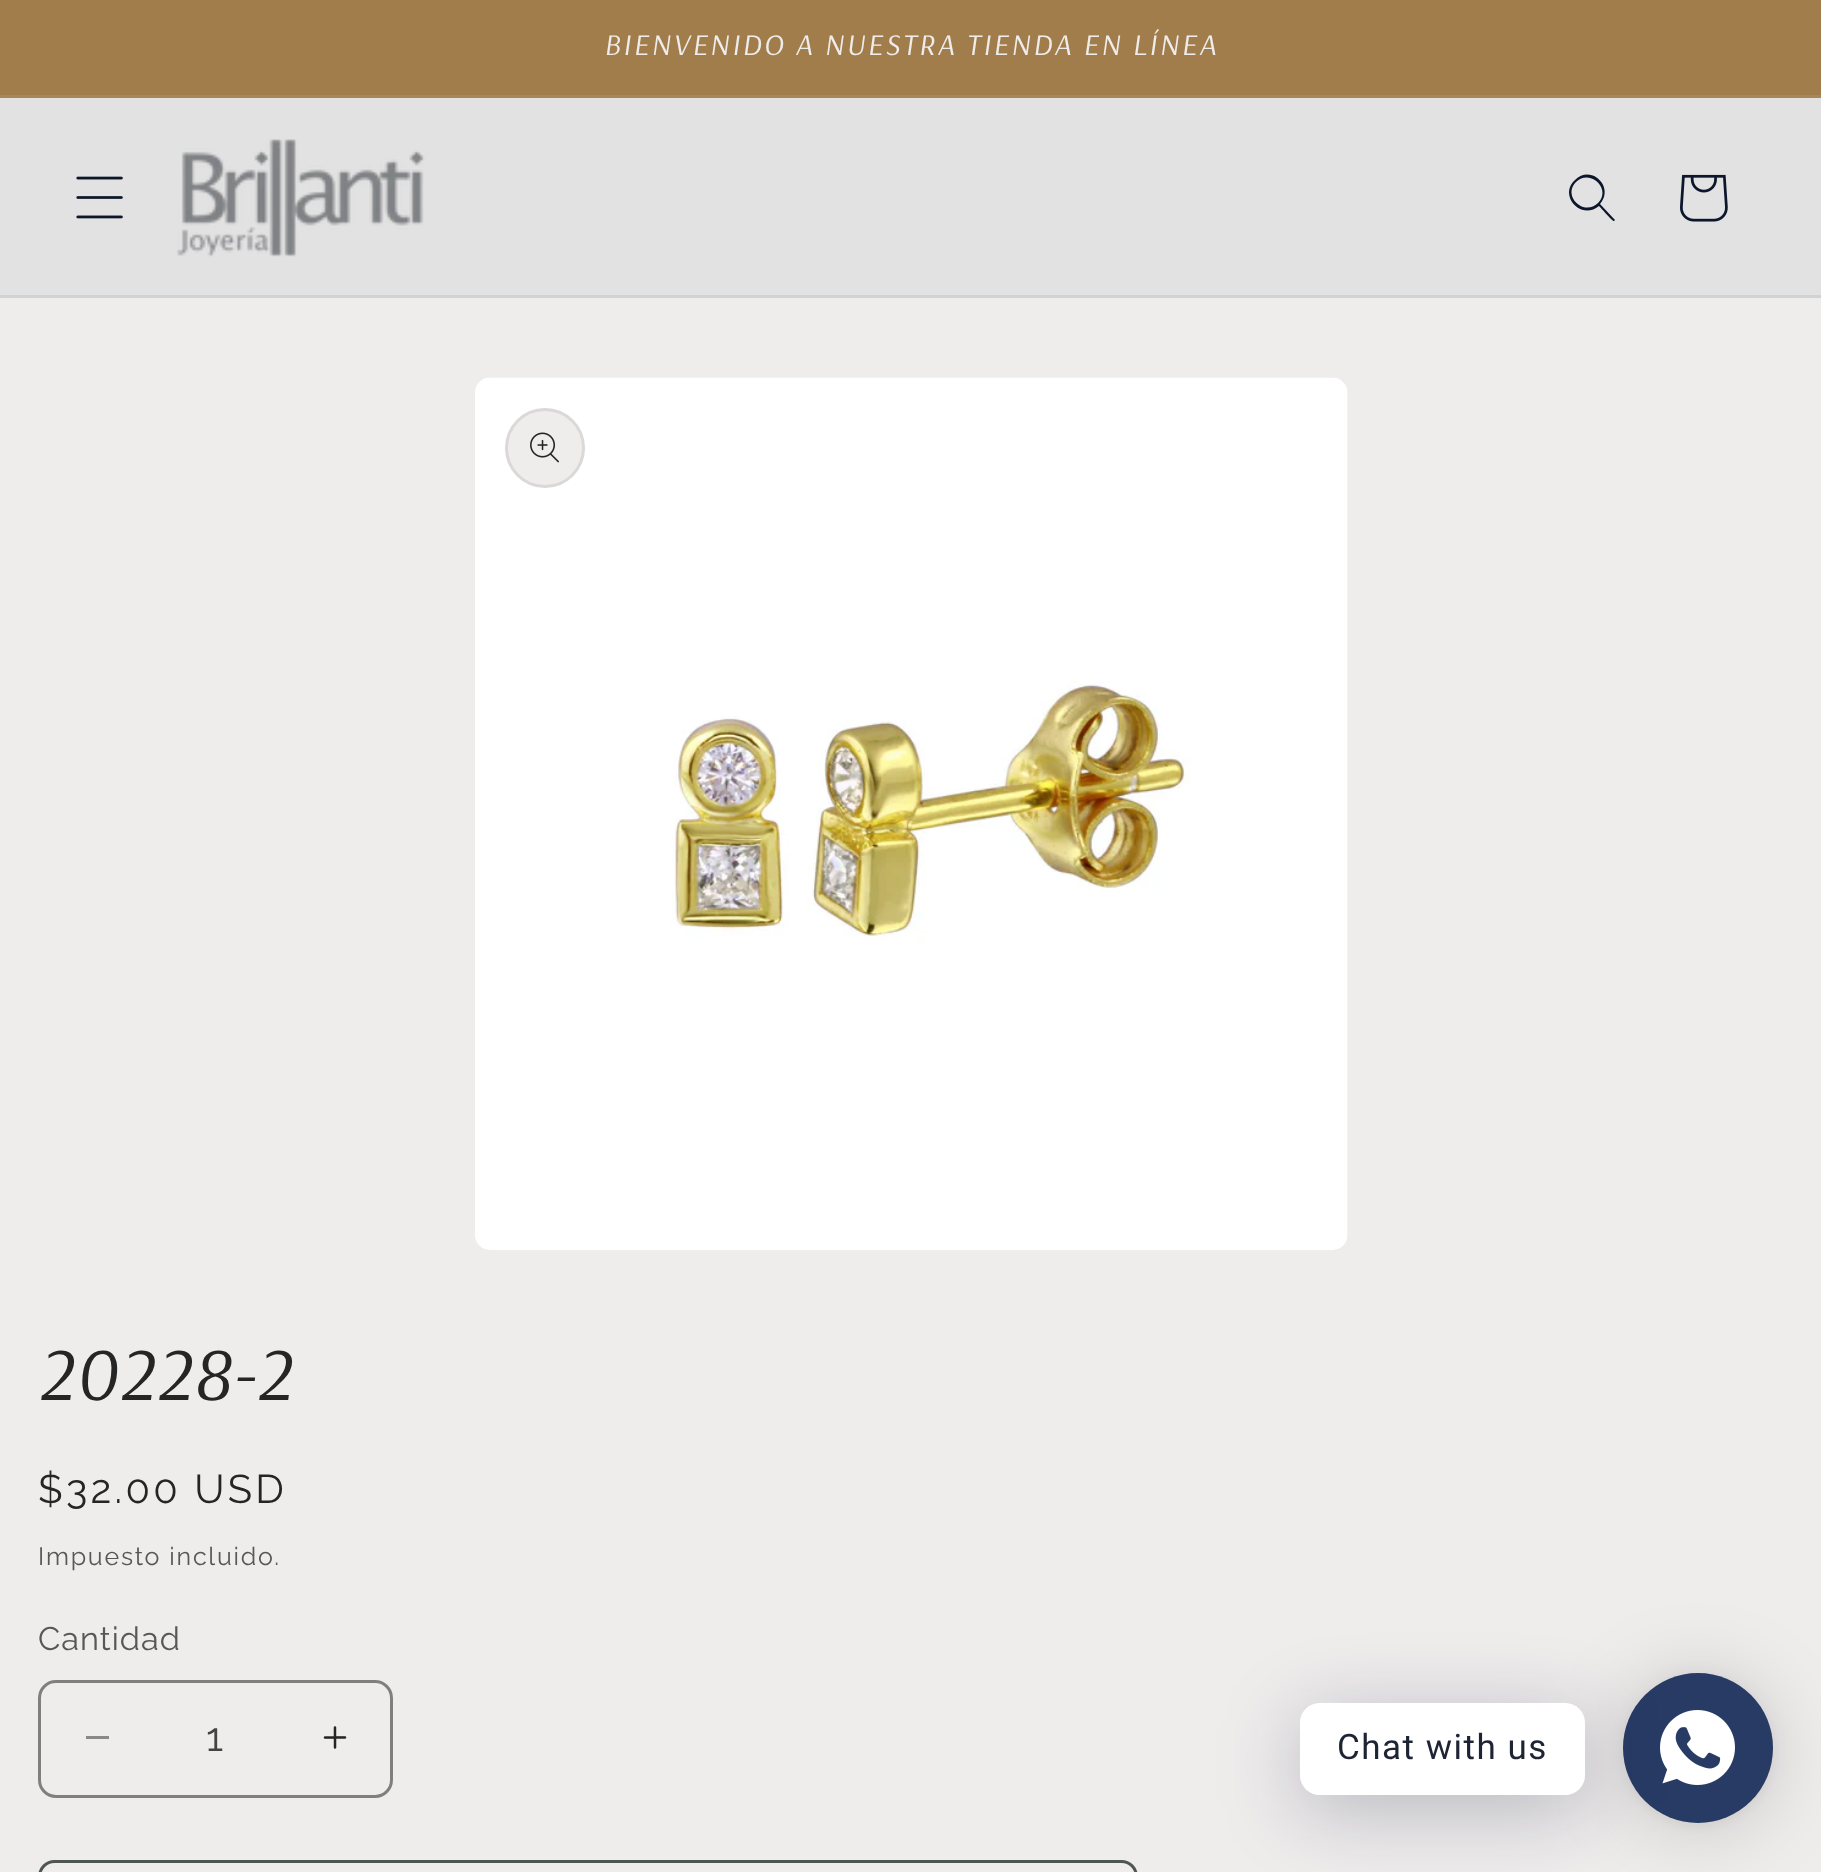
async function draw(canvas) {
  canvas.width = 1821;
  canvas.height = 1872;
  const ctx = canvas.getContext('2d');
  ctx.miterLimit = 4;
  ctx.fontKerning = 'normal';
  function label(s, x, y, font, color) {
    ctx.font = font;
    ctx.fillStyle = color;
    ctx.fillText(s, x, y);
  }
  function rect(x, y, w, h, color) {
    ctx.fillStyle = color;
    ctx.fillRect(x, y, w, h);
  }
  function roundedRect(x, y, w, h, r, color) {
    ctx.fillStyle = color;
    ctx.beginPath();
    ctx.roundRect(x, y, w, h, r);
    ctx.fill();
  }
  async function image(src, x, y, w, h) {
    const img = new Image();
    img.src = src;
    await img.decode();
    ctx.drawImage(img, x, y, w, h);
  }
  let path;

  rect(0, 0, 1821, 1872, '#efecec');
  rect(0, 0, 1821, 95, '#a17d4b');
  rect(0, 95, 1821, 3, '#a78658');
  ctx.letterSpacing = '2.5px';
  label('BIENVENIDO A NUESTRA TIENDA EN LÍNEA', 604, 55, 'italic 30px Arsenal', '#efecec');
  rect(0, 98, 1821, 197, '#e2e2e2');
  rect(0, 295, 1821, 3, '#d1d2d3');
  await image('assets/img1.png', 76, 176, 47, 43);
  await image('assets/img2.png', 177, 139, 248, 118);
  ctx.fillStyle = '#0c172b';
  path = new Path2D('M1598 203C1584 217 1562 196 1576 182C1590 168 1612 189 1598 203ZM1599 206C1581 221 1558 195 1575 180C1591 164 1615 187 1600 204L1615 220L1614 221C1613 222 1601 208 1599 206Z');
  ctx.fill(path, 'evenodd');
  await image('assets/img3.png', 1680, 174, 48, 48);
  await image('assets/img4.png', 475, 377, 873, 873);
  ctx.fillStyle = '#efecec';
  ctx.beginPath();
  ctx.arc(545, 448, 40, 0, 2 * Math.PI);
  ctx.fill();
  ctx.beginPath();
  ctx.arc(545, 448, 38.5, 0, 2 * Math.PI);
  ctx.strokeStyle = '#2525251a';
  ctx.lineWidth = 3;
  ctx.stroke();
  await image('assets/img5.png', 530, 432, 29, 31);
  ctx.letterSpacing = '1.5px';
  label('20228-2', 38, 1400, 'italic 75px Arsenal', '#252525');
  ctx.letterSpacing = '3.25px';
  label('$32.00 USD', 38, 1503, '40px Raleway', '#252525');
  ctx.letterSpacing = '1.75px';
  label('Impuesto incluido.', 38, 1565, '25px Raleway', '#585757');
  ctx.letterSpacing = '1px';
  label('Cantidad', 38, 1650, '32.5px Raleway', '#585757');
  rect(86, 1736, 23, 3, '#8a8989');
  await image('assets/img6.png', 323, 1726, 24, 23);
  ctx.beginPath();
  ctx.roundRect(39.5, 1681.5, 352, 115, 16.5);
  ctx.strokeStyle = '#807f7f';
  ctx.stroke();
  ctx.letterSpacing = '0px';
  label('1', 206, 1751, '40px Raleway', '#434343');
  ctx.beginPath();
  ctx.roundRect(39.5, 1861.5, 1097, 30, 16.5);
  ctx.strokeStyle = '#505655';
  ctx.stroke();
  ctx.fillStyle = '#00000029';
  ctx.filter = 'blur(40px)';
  ctx.beginPath();
  ctx.roundRect(1623, 1678, 150, 150, 75);
  ctx.fill();
  ctx.filter = 'none';
  ctx.fillStyle = '#0000000f';
  ctx.filter = 'blur(7.5px)';
  ctx.beginPath();
  ctx.roundRect(1623, 1675, 150, 150, 75);
  ctx.fill();
  ctx.filter = 'none';
  ctx.fillStyle = '#273b64';
  ctx.beginPath();
  ctx.arc(1698, 1748, 75, 0, 2 * Math.PI);
  ctx.fill();
  ctx.save();
  path = new Path2D('M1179 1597H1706V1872H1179ZM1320 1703H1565C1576 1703 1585 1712 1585 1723V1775C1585 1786 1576 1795 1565 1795H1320C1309 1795 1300 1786 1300 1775V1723C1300 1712 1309 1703 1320 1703Z');
  ctx.clip(path, 'evenodd');
  ctx.fillStyle = '#00122e3d';
  ctx.filter = 'blur(40px)';
  ctx.beginPath();
  ctx.roundRect(1300, 1718, 285, 92, 20);
  ctx.fill();
  ctx.filter = 'none';
  ctx.restore();
  roundedRect(1300, 1703, 285, 92, 20, '#fff');
  ctx.letterSpacing = '1.5px';
  label('Chat with us', 1337, 1759, '35px Roboto', '#1e2433');
  await image('assets/img7.png', 1660, 1710, 75, 75);
}

draw(document.querySelector('canvas'));
